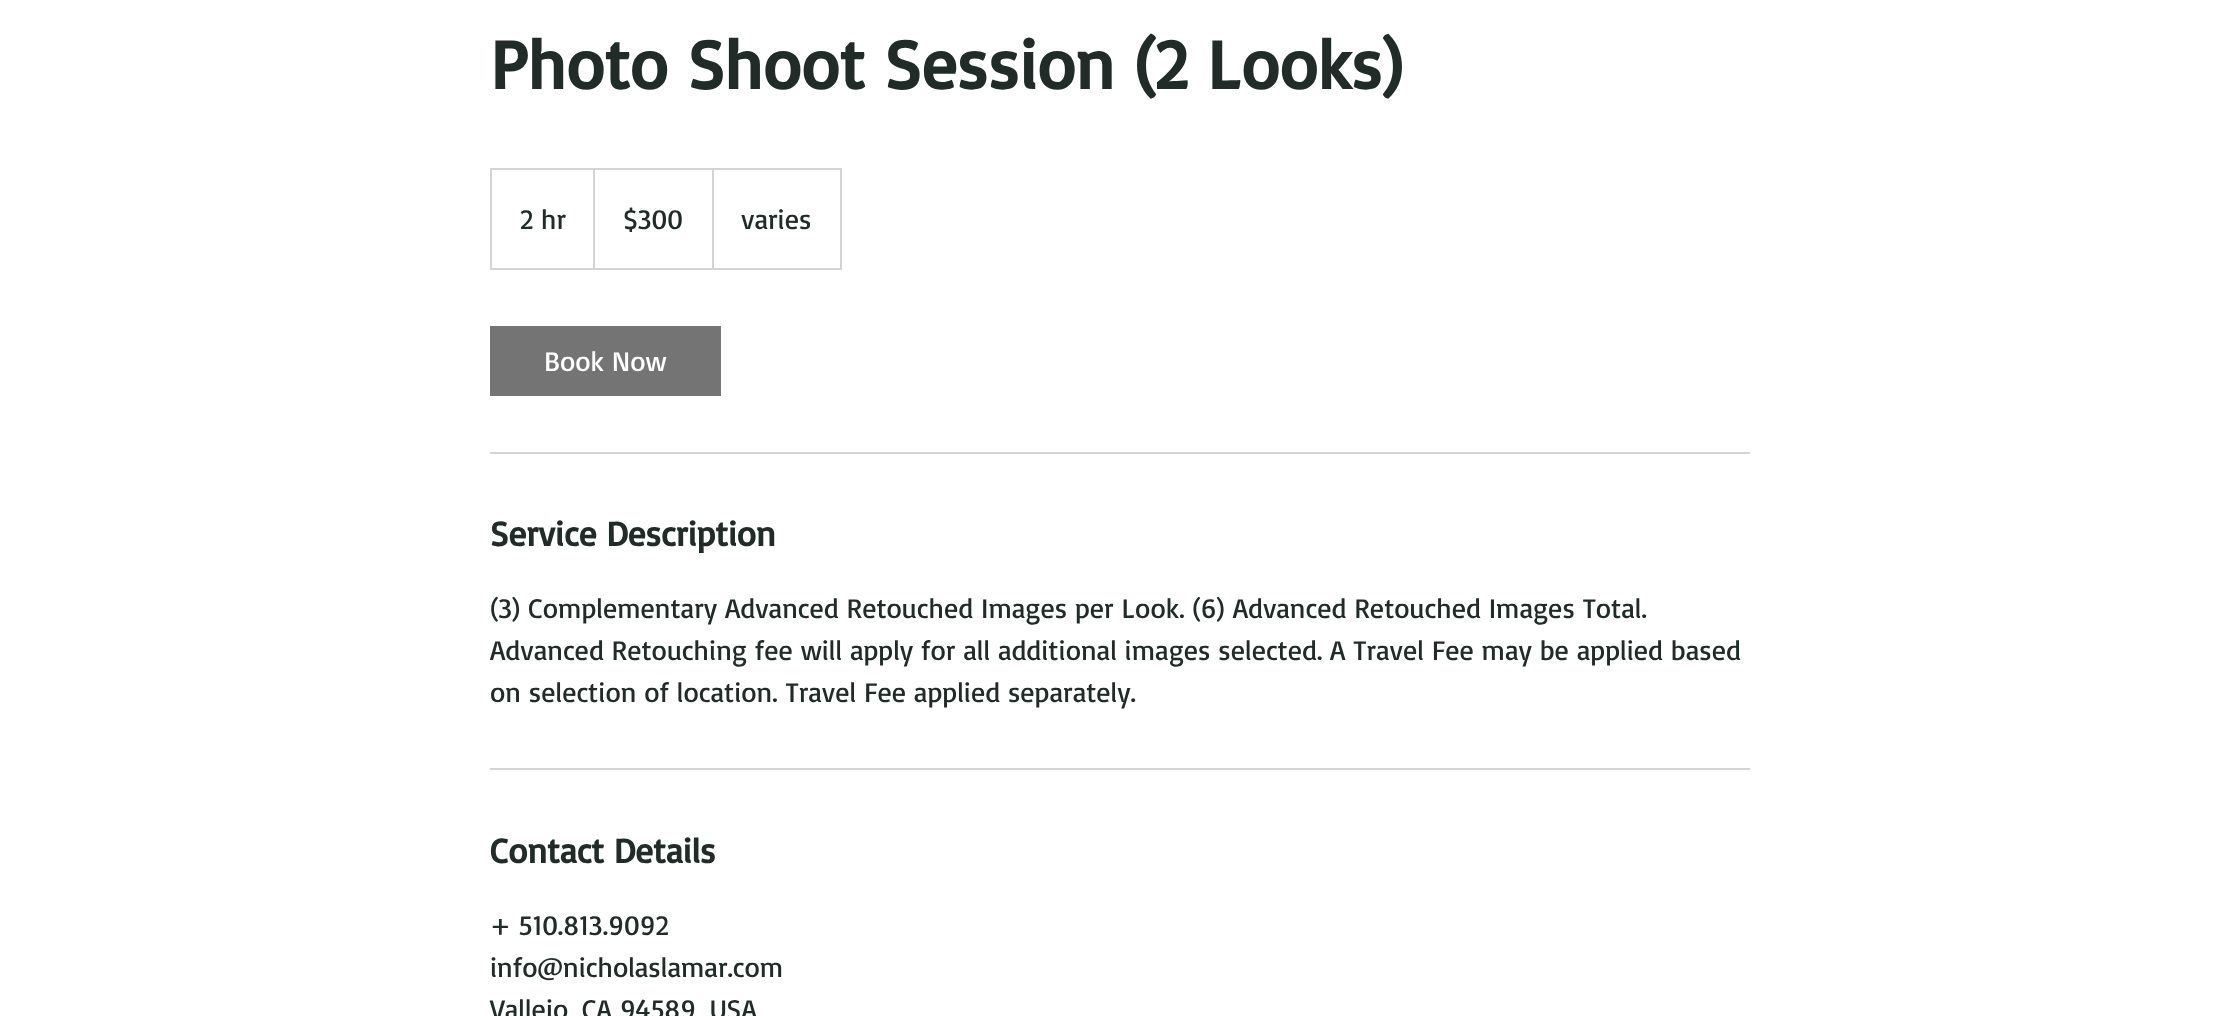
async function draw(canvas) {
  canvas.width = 2240;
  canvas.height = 1016;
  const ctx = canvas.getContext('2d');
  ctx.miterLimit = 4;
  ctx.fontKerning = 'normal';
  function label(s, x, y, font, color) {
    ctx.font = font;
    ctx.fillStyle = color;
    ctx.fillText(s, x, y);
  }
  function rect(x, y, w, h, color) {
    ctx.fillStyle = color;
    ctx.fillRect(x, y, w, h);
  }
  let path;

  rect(0, 0, 2240, 1016, '#fff');
  label('Photo Shoot Session (2 Looks)', 490, 89, 'bold 70px Basic', '#212c29');
  ctx.strokeStyle = '#d3d5d4';
  ctx.lineWidth = 2;
  ctx.strokeRect(491, 169, 350, 100);
  label('2 hr', 520, 229, '28px Basic', '#212c29');
  ctx.save();
  ctx.beginPath();
  ctx.rect(492, 170, 348, 98);
  ctx.clip();
  ctx.fillStyle = '#d3d5d4';
  path = new Path2D('M593 268V168L595 170V268Z');
  ctx.fill(path);
  ctx.restore();
  label('$300', 623, 229, '28px Basic', '#212c29');
  ctx.save();
  ctx.beginPath();
  ctx.rect(492, 170, 348, 98);
  ctx.clip();
  ctx.fillStyle = '#d3d5d4';
  path = new Path2D('M712 268V168L714 170V268Z');
  ctx.fill(path);
  ctx.restore();
  label('varies', 741, 229, '28px Basic', '#212c29');
  rect(490, 326, 231, 70, '#747474');
  label('Book Now', 544, 371, '28px Basic', '#fff');
  rect(490, 452, 1260, 2, '#d3d5d4');
  label('Service Description', 490, 546, 'bold 35px Basic', '#212c29');
  label('(3) Complementary Advanced Retouched Images per Look. (6) Advanced Retouched Images Total.', 490, 618, '28px Basic', '#212c29');
  label('Advanced Retouching fee will apply for all additional images selected. A Travel Fee may be applied based', 490, 660, '28px Basic', '#212c29');
  label('on selection of location. Travel Fee applied separately.', 490, 702, '28px Basic', '#212c29');
  rect(490, 768, 1260, 2, '#d3d5d4');
  label('Contact Details', 490, 863, 'bold 35px Basic', '#212c29');
  label('+ 510.813.9092', 490, 935, '28px Basic', '#212c29');
  label('info@nicholaslamar.com', 490, 977, '28px Basic', '#212c29');
  label('Vallejo, CA 94589, USA', 490, 1019, '28px Basic', '#212c29');
}

draw(document.querySelector('canvas'));
